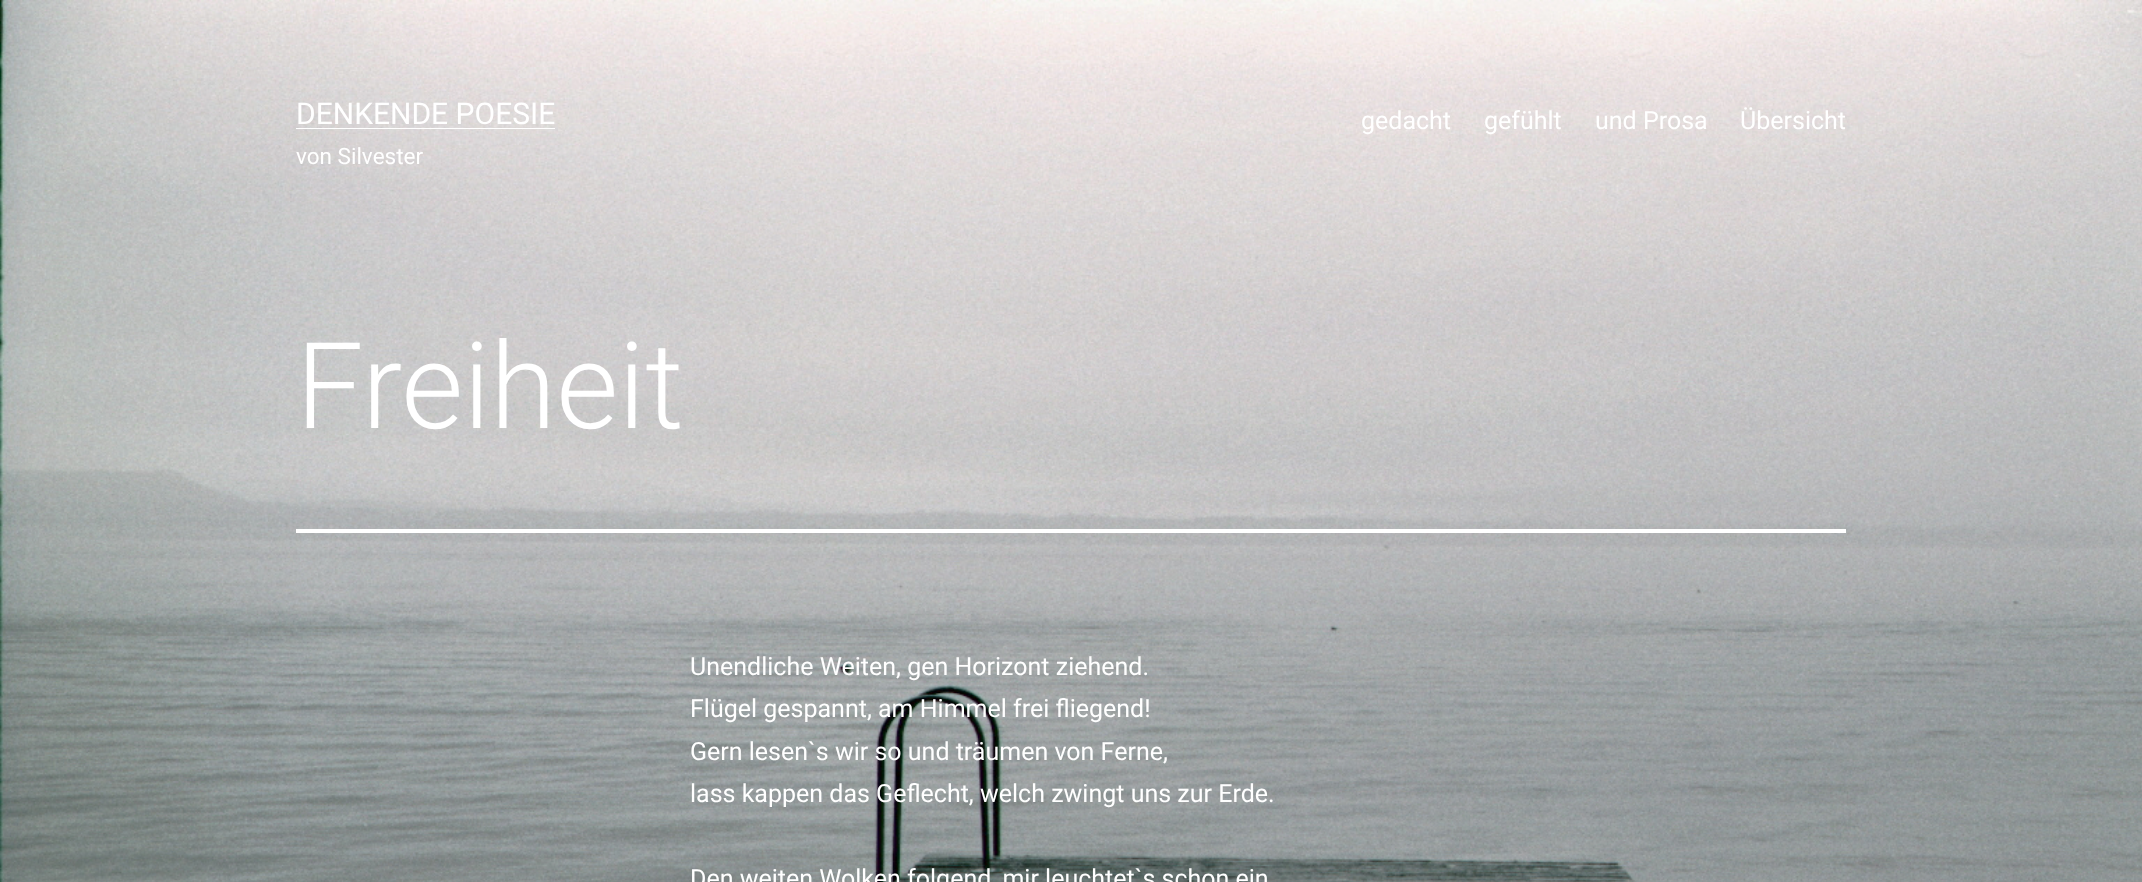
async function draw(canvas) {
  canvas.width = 2142;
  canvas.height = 882;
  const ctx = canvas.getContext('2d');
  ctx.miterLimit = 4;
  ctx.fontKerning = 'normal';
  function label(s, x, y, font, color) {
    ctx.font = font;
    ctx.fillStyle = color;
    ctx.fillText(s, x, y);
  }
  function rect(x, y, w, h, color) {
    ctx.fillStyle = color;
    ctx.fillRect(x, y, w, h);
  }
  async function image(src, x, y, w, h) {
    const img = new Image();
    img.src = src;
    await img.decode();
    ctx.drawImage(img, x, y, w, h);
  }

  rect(0, 0, 2142, 882, '#fff');
  await image('assets/img1.png', 0, 0, 2142, 882);
  label('DENKENDE POESIE', 296, 124, '30px Roboto', '#fff');
  rect(296, 128, 259, 1, '#fff');
  label('von Silvester', 296, 164, '22.5px Roboto', '#fff');
  label('gedacht', 1361, 129, '25px Roboto', '#fff');
  label('gefühlt', 1484, 129, '25px Roboto', '#fff');
  label('und Prosa', 1595, 129, '25px Roboto', '#fff');
  label('Übersicht', 1740, 129, '25px Roboto', '#fff');
  rect(296, 529, 1550, 4, '#fff');
  label('Freiheit', 296, 428, '300 120px Roboto', '#fff');
  label('Unendliche Weiten, gen Horizont ziehend.', 690, 675, '25px Roboto', '#fff');
  label('Flügel gespannt, am Himmel frei fliegend!', 690, 717, '25px Roboto', '#fff');
  label('Gern lesen`s wir so und träumen von Ferne,', 690, 760, '25px Roboto', '#fff');
  label('lass kappen das Geflecht, welch zwingt uns zur Erde.', 690, 802, '25px Roboto', '#fff');
  label('Den weiten Wolken folgend, mir leuchtet`s schon ein', 690, 887, '25px Roboto', '#fff');
}

draw(document.querySelector('canvas'));
